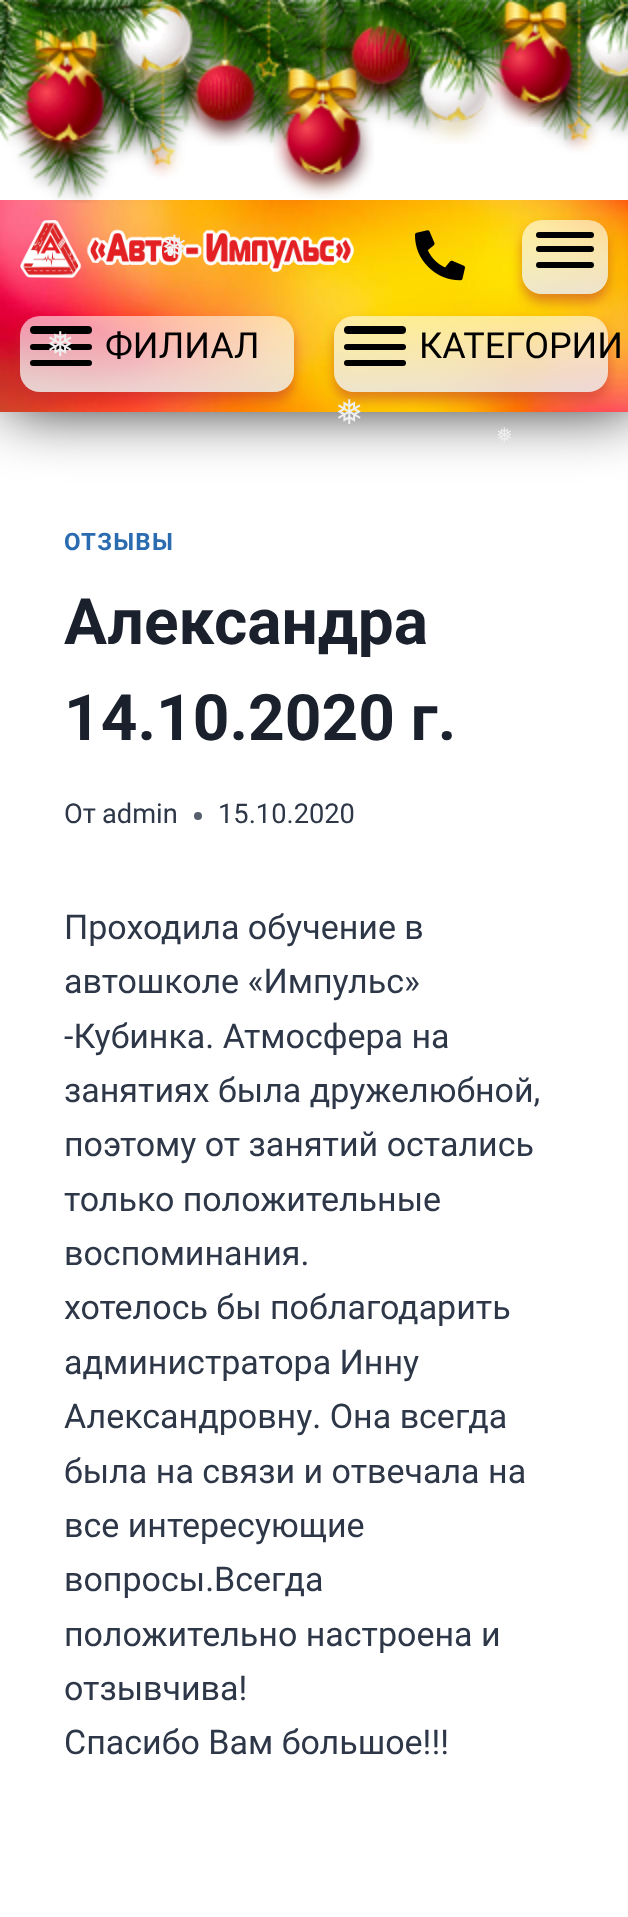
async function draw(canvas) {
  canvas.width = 628;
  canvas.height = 1917;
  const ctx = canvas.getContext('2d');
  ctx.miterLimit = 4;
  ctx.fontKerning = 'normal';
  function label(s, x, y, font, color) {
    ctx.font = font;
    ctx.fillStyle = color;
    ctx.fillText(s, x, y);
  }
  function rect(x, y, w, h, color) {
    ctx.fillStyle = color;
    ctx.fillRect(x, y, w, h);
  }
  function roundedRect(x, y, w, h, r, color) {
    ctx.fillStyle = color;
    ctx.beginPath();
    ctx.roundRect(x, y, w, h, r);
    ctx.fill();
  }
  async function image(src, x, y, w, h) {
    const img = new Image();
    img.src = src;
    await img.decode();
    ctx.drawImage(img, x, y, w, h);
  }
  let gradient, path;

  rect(0, 0, 628, 1917, '#fff');
  ctx.save();
  ctx.beginPath();
  ctx.rect(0, 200, 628, 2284);
  ctx.clip();
  ctx.fillStyle = '#000000e3';
  ctx.filter = 'blur(31px)';
  ctx.beginPath();
  ctx.rect(8, 196, 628, 212);
  ctx.fill();
  ctx.filter = 'none';
  ctx.restore();
  await image('assets/img15.png', 0, 200, 628, 212);
  await image('assets/img16.png', 20, 220, 334, 58);
  label('❅', 161, 258, '32px DejaVu Sans', '#efefef');
  ctx.save();
  path = new Path2D('M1 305H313V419H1ZM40 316H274C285 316 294 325 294 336V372C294 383 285 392 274 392H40C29 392 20 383 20 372V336C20 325 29 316 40 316Z');
  ctx.clip(path, 'evenodd');
  ctx.fillStyle = '#c2333380';
  ctx.filter = 'blur(6px)';
  ctx.beginPath();
  ctx.roundRect(20, 324, 274, 76, 20);
  ctx.fill();
  ctx.filter = 'none';
  ctx.restore();
  gradient = ctx.createLinearGradient(157, 316, 157, 392);
  gradient.addColorStop(0, '#ffffff91');
  gradient.addColorStop(1, '#ebe7e8e0');
  ctx.fillStyle = gradient;
  ctx.beginPath();
  ctx.roundRect(20, 316, 274, 76, 20);
  ctx.fill();
  roundedRect(30, 344, 62, 6, 3, '#000');
  roundedRect(30, 326, 62, 8, 4, '#000');
  label('❅', 46, 356, '34px DejaVu Sans', '#efefef');
  ctx.save();
  path = new Path2D('M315 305H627V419H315ZM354 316H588C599 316 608 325 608 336V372C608 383 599 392 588 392H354C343 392 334 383 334 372V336C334 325 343 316 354 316Z');
  ctx.clip(path, 'evenodd');
  ctx.fillStyle = '#c2333380';
  ctx.filter = 'blur(6px)';
  ctx.beginPath();
  ctx.roundRect(334, 324, 274, 76, 20);
  ctx.fill();
  ctx.filter = 'none';
  ctx.restore();
  label('❅', 335, 424, '34px DejaVu Sans', '#efefef');
  label('❅', 496, 442, '20px DejaVu Sans', '#efefef');
  await image('assets/img1.png', 0, 0, 628, 203);
  await image('assets/img3.png', 13, 0, 104, 164);
  await image('assets/img2.png', 0, 0, 50, 142);
  await image('assets/img5.png', 108, 0, 98, 93);
  await image('assets/img4.png', 50, 0, 122, 54);
  await image('assets/img6.png', 273, 0, 101, 199);
  await image('assets/img7.png', 339, 0, 82, 107);
  await image('assets/img13.png', 408, 12, 90, 132);
  await image('assets/img8.png', 354, 0, 56, 62);
  await image('assets/img10.png', 487, 0, 97, 127);
  await image('assets/img9.png', 410, 0, 100, 101);
  await image('assets/img11.png', 574, 0, 54, 98);
  await image('assets/img12.png', 183, 18, 83, 128);
  await image('assets/img14.png', 578, 0, 50, 55);
  await image('assets/img17.png', 415, 230, 50, 51);
  ctx.save();
  path = new Path2D('M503 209H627V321H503ZM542 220H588C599 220 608 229 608 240V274C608 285 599 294 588 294H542C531 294 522 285 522 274V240C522 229 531 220 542 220Z');
  ctx.clip(path, 'evenodd');
  ctx.fillStyle = '#c2333380';
  ctx.filter = 'blur(6px)';
  ctx.beginPath();
  ctx.roundRect(522, 228, 86, 74, 20);
  ctx.fill();
  ctx.filter = 'none';
  ctx.restore();
  gradient = ctx.createLinearGradient(565, 220, 565, 294);
  gradient.addColorStop(0, '#ffffff91');
  gradient.addColorStop(1, '#ebe7e8e0');
  ctx.fillStyle = gradient;
  ctx.beginPath();
  ctx.roundRect(522, 220, 86, 74, 20);
  ctx.fill();
  roundedRect(536, 246, 58, 6, 3, '#000');
  roundedRect(536, 232, 58, 6, 3, '#000');
  roundedRect(536, 262, 58, 6, 3, '#000');
  roundedRect(30, 360, 62, 6, 3, '#000');
  label('ФИЛИАЛ', 105, 358, '36px Roboto', '#000');
  gradient = ctx.createLinearGradient(471, 316, 471, 392);
  gradient.addColorStop(0, '#ffffff91');
  gradient.addColorStop(1, '#ebe7e8e0');
  ctx.fillStyle = gradient;
  ctx.beginPath();
  ctx.roundRect(334, 316, 274, 76, 20);
  ctx.fill();
  roundedRect(344, 344, 62, 6, 3, '#000');
  roundedRect(344, 326, 62, 8, 4, '#000');
  roundedRect(344, 360, 62, 6, 3, '#000');
  label('КАТЕГОРИИ', 419, 358, '36px Roboto', '#000');
  ctx.letterSpacing = '1.25px';
  label('ОТЗЫВЫ', 64, 550, 'bold 24px Roboto', '#2b6cb0');
  ctx.letterSpacing = '0px';
  label('Александра', 64, 644, 'bold 64px Roboto', '#1a202c');
  label('14.10.2020 г.', 64, 740, 'bold 64px Roboto', '#1a202c');
  label('От', 64, 823, '27.25px Roboto', '#2d3748');
  label('admin', 102, 823, '27.25px Roboto', '#2d3748');
  ctx.fillStyle = '#575f6d';
  ctx.beginPath();
  ctx.arc(198, 816, 4, 0, 2 * Math.PI);
  ctx.fill();
  label('15.10.2020', 218, 823, '27.25px Roboto', '#2d3748');
  label('Проходила обучение в', 64, 939, '34px Roboto', '#2d3748');
  label('автошколе «Импульс»', 64, 993, '34px Roboto', '#2d3748');
  label('-Кубинка. Атмосфера на', 64, 1048, '34px Roboto', '#2d3748');
  label('занятиях была дружелюбной,', 64, 1102, '34px Roboto', '#2d3748');
  label('поэтому от занятий остались', 64, 1156, '34px Roboto', '#2d3748');
  label('только положительные', 64, 1211, '34px Roboto', '#2d3748');
  label('воспоминания.', 64, 1265, '34px Roboto', '#2d3748');
  label('хотелось бы поблагодарить', 64, 1319, '34px Roboto', '#2d3748');
  label('администратора Инну', 64, 1374, '34px Roboto', '#2d3748');
  label('Александровну. Она всегда', 64, 1428, '34px Roboto', '#2d3748');
  label('была на связи и отвечала на', 64, 1483, '34px Roboto', '#2d3748');
  label('все интересующие', 64, 1537, '34px Roboto', '#2d3748');
  label('вопросы.Всегда', 64, 1591, '34px Roboto', '#2d3748');
  label('положительно настроена и', 64, 1646, '34px Roboto', '#2d3748');
  label('отзывчива!', 64, 1700, '34px Roboto', '#2d3748');
  label('Спасибо Вам большое!!!', 64, 1754, '34px Roboto', '#2d3748');
}

draw(document.querySelector('canvas'));
